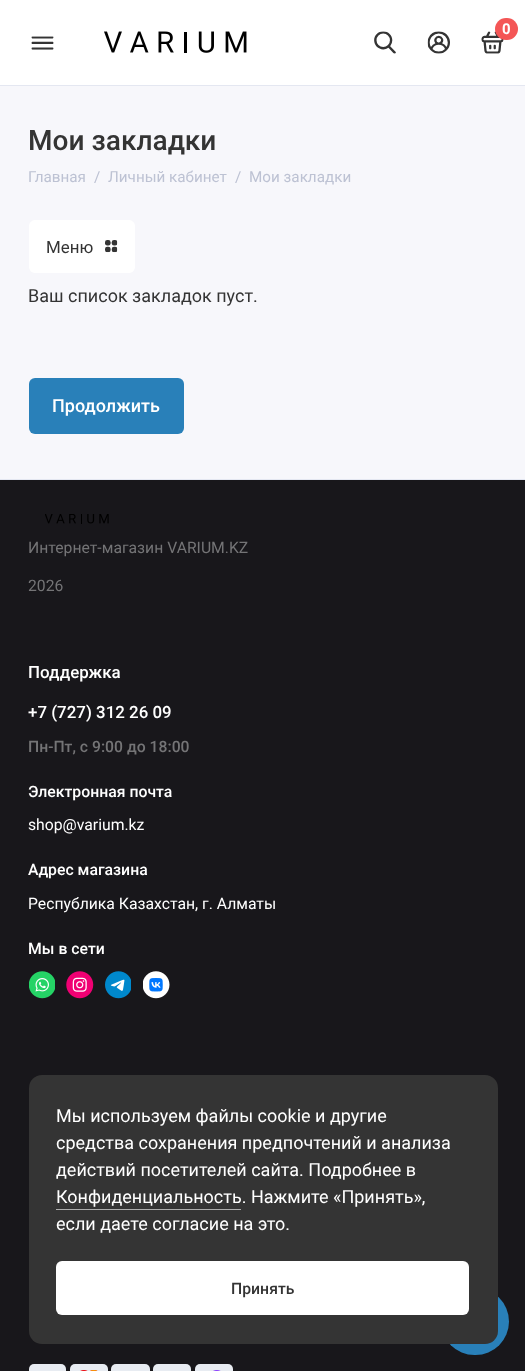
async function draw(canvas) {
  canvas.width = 525;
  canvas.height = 1371;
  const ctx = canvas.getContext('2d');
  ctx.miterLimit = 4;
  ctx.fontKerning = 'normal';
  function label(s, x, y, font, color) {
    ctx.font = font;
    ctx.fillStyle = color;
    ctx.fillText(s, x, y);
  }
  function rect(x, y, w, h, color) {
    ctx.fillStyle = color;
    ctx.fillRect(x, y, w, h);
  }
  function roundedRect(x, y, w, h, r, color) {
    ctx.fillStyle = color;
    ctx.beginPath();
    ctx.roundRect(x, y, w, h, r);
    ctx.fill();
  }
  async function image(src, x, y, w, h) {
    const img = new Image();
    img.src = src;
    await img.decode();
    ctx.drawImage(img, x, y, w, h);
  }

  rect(0, 0, 525, 1371, '#f7f7fb');
  rect(0, 0, 525, 85, '#fff');
  rect(0, 85, 525, 1, '#e4e7f1');
  await image('assets/img1.png', 481, 31, 23, 23);
  roundedRect(495, 18, 23, 22, 11, '#f45656');
  label('0', 502, 34, 'bold 15px Roboto', '#fff');
  await image('assets/img2.png', 374, 31, 22, 23);
  await image('assets/img3.png', 427, 31, 23, 23);
  await image('assets/img4.png', 31, 36, 23, 14);
  await image('assets/img5.png', 104, 31, 143, 22);
  rect(0, 480, 525, 891, '#18171b');
  roundedRect(441, 1288, 68, 67, 33.5, '#2980b9');
  label('Мои закладки', 28, 150, '500 28px Roboto', '#343434');
  label('Главная', 28, 182, '15.25px Roboto', '#bdc2d3');
  label('/', 94, 182, '15.25px Roboto', '#bdc2d3');
  label('Личный кабинет', 108, 182, '15.25px Roboto', '#bdc2d3');
  label('/', 235, 182, '15.25px Roboto', '#bdc2d3');
  label('Мои закладки', 249, 182, '15.25px Roboto', '#bdc2d3');
  roundedRect(29, 220, 106, 53, 6, '#fff');
  label('Меню', 46, 253, '16.9px Roboto', '#343434');
  await image('assets/img6.png', 105, 240, 13, 13);
  label('Ваш список закладок пуст.', 28, 302, '18px Roboto', '#343434');
  roundedRect(29, 378, 155, 56, 6, '#2980b9');
  label('Продолжить', 52, 412, '500 18px Roboto', '#fff');
  rect(0, 479, 525, 1, '#e4e7f1');
  await image('assets/img7.png', 45, 514, 64, 10);
  label('Интернет-магазин VARIUM.KZ', 28, 553, '15.75px Roboto', '#747476');
  label('2026', 28, 591, '15.75px Roboto', '#747476');
  label('Поддержка', 28, 678, '500 16.9px Roboto', '#fff');
  label('+7 (727) 312 26 09', 28, 718, '500 16.9px Roboto', '#fff');
  label('Пн-Пт, с 9:00 до 18:00', 28, 752, '500 15.75px Roboto', '#747476');
  label('Электронная почта', 28, 797, '500 15.75px Roboto', '#fff');
  label('shop@varium.kz', 28, 830, '15.75px Roboto', '#fff');
  label('Адрес магазина', 28, 875, '500 15.75px Roboto', '#fff');
  label('Республика Казахстан, г. Алматы', 28, 909, '15.75px Roboto', '#fff');
  label('Мы в сети', 28, 954, '500 15.75px Roboto', '#fff');
  await image('assets/img8.png', 29, 971, 26, 28);
  await image('assets/img9.png', 66, 971, 28, 28);
  await image('assets/img10.png', 105, 971, 26, 28);
  await image('assets/img11.png', 143, 971, 27, 28);
  roundedRect(29, 1364, 37, 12, 5, '#e8ecf2');
  roundedRect(70, 1364, 38, 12, 5, '#e8ecf2');
  await image('assets/img12.png', 80, 1370, 18, 1);
  roundedRect(111, 1364, 39, 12, 5, '#e8ecf2');
  roundedRect(153, 1364, 38, 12, 5, '#e8ecf2');
  roundedRect(195, 1364, 38, 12, 5, '#e8ecf2');
  await image('assets/img13.png', 213, 1370, 8, 1);
  roundedRect(29, 1075, 469, 269, 13, '#343434');
  label('Мы используем файлы cookie и другие', 56, 1122, '18px Roboto', '#fff');
  label('средства сохранения предпочтений и анализа', 56, 1149, '18px Roboto', '#fff');
  label('действий посетителей сайта. Подробнее в', 56, 1176, '18px Roboto', '#fff');
  label('Конфиденциальность. Нажмите «Принять»,', 56, 1203, '18px Roboto', '#fff');
  rect(56, 1209, 185, 1, '#aeaeae');
  label('если даете согласие на это.', 56, 1230, '18px Roboto', '#fff');
  roundedRect(56, 1261, 413, 54, 6, '#fff');
  label('Принять', 231, 1294, '500 15.75px Roboto', '#343434');
}

draw(document.querySelector('canvas'));
